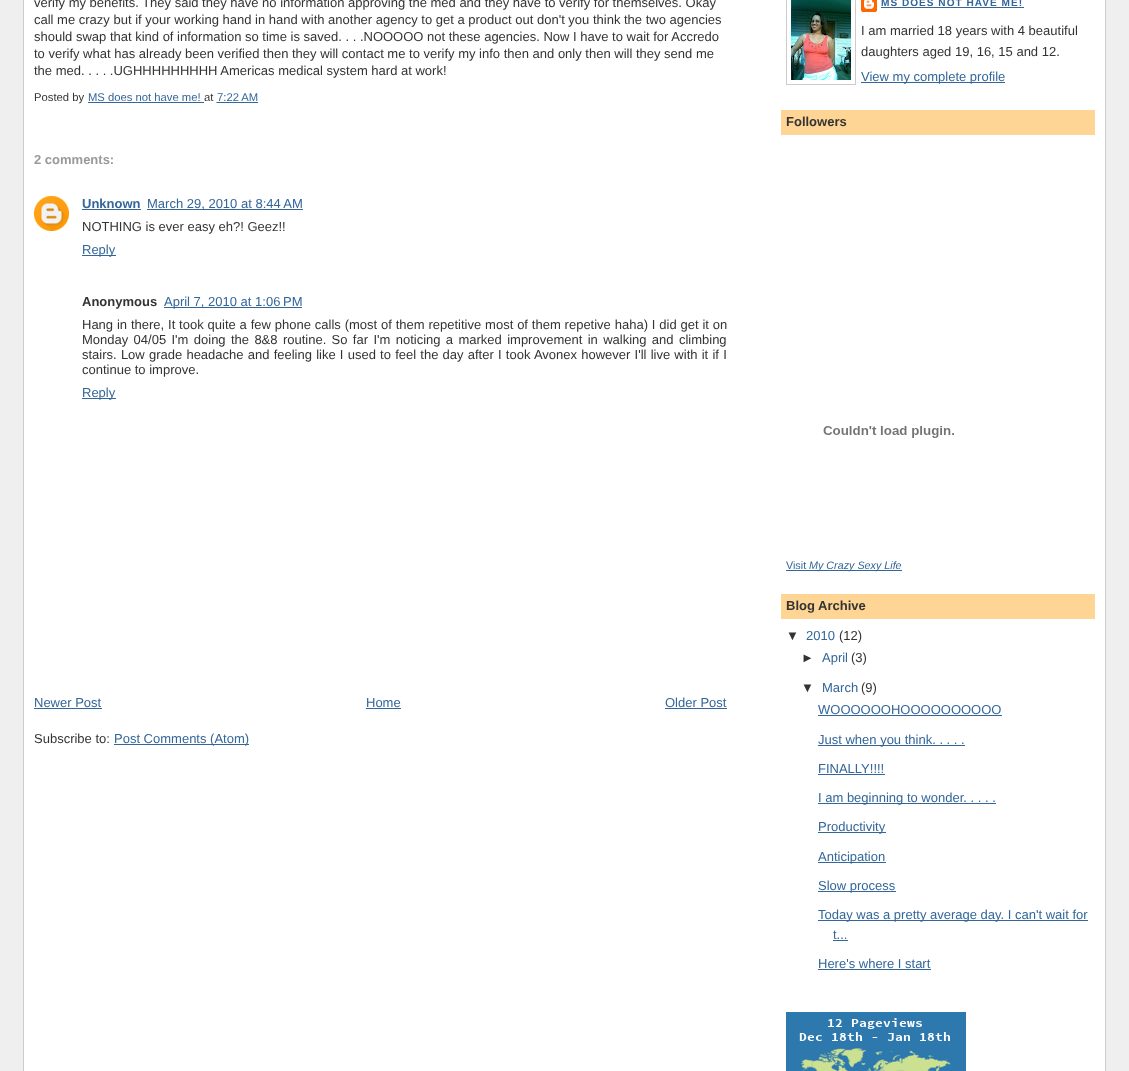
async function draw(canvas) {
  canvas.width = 1129;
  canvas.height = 1071;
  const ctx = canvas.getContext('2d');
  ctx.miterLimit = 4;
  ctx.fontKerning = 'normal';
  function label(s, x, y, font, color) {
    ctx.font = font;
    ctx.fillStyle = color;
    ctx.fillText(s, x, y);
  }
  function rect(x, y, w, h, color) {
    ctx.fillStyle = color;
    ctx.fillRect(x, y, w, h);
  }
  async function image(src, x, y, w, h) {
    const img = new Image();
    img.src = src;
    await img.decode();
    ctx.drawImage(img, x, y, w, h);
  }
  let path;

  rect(0, 0, 1129, 1071, '#efefef');
  rect(24, 0, 1081, 1071, '#fff');
  rect(1105, 0, 1, 1071, '#ccc');
  rect(23, 0, 1, 1071, '#ccc');
  label('verify my benefits. They said they have no information approving the med and they have to verify for themselves. Okay', 34, 7, '13px Liberation Sans', '#333');
  label('call me crazy but if your working hand in hand with another agency to get a product out don\'t you think the two agencies', 34, 24, '13px Liberation Sans', '#333');
  label('should swap that kind of information so time is saved. . . .NOOOOO not these agencies. Now I have to wait for Accredo', 34, 41, '13px Liberation Sans', '#333');
  label('to verify what has already been verified then they will contact me to verify my info then and only then will they send me', 34, 58, '13px Liberation Sans', '#333');
  label('the med. . . . .UGHHHHHHHHH Americas medical system hard at work!', 34, 75, '13px Liberation Sans', '#333');
  label('Posted by', 34, 101, '11.25px Liberation Sans', '#333');
  label('MS does not have me!', 88, 101, '11.25px Liberation Sans', '#369');
  rect(88, 102, 116, 1, '#369');
  label('at', 204, 101, '11.25px Liberation Sans', '#333');
  label('7:22 AM', 217, 101, '11.25px Liberation Sans', '#369');
  path = new Path2D('M216.5 102.5H257.5');
  ctx.strokeStyle = '#369';
  ctx.setLineDash([1, 1]);
  ctx.stroke(path);
  rect(217, 102, 41, 1, '#369');
  label('2 comments:', 34, 164, 'bold 13px Liberation Sans', '#999');
  await image('assets/img1.png', 34, 196, 35, 35);
  label('Unknown', 82, 208, 'bold 13px Liberation Sans', '#369');
  rect(82, 209, 59, 1, '#369');
  rect(147, 209, 156, 1, '#369');
  label('March 29, 2010 at 8:44 AM', 147, 208, '13px Liberation Sans', '#369');
  label('NOTHING is ever easy eh?! Geez!!', 82, 231, '13px Liberation Sans', '#333');
  rect(82, 255, 34, 1, '#369');
  label('Reply', 82, 254, '13px Liberation Sans', '#369');
  label('Anonymous', 82, 306, 'bold 13px Liberation Sans', '#333');
  rect(164, 307, 138, 1, '#369');
  label('April 7, 2010 at 1:06 PM', 164, 306, '13px Liberation Sans', '#369');
  ctx.wordSpacing = '0.25px';
  label('Hang in there, It took quite a few phone calls (most of them repetitive most of them repetive haha) I did get it on', 82, 329, '13px Liberation Sans', '#333');
  ctx.wordSpacing = '1.75px';
  label('Monday 04/05 I\'m doing the 8&8 routine. So far I\'m noticing a marked improvement in walking and climbing', 82, 344, '13px Liberation Sans', '#333');
  ctx.wordSpacing = '0.6px';
  label('stairs. Low grade headache and feeling like I used to feel the day after I took Avonex however I\'ll live with it if I', 82, 359, '13px Liberation Sans', '#333');
  ctx.wordSpacing = '0px';
  label('continue to improve.', 82, 374, '13px Liberation Sans', '#333');
  rect(82, 398, 34, 1, '#369');
  label('Reply', 82, 397, '13px Liberation Sans', '#369');
  label('Newer Post', 34, 707, '13px Liberation Sans', '#369');
  rect(34, 708, 68, 1, '#369');
  label('Home', 366, 707, '13px Liberation Sans', '#369');
  rect(366, 708, 35, 1, '#369');
  label('Older Post', 665, 707, '13px Liberation Sans', '#369');
  rect(665, 708, 62, 1, '#369');
  label('Subscribe to:', 34, 743, '13px Liberation Sans', '#333');
  rect(114, 744, 135, 1, '#369');
  label('Post Comments (Atom)', 114, 743, '13px Liberation Sans', '#369');
  ctx.strokeStyle = '#ccc';
  ctx.setLineDash([]);
  ctx.strokeRect(786.5, -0.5, 69, 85);
  await image('assets/img2.png', 791, 0, 60, 80);
  await image('assets/img3.png', 861, 0, 16, 12);
  ctx.letterSpacing = '1px';
  label('MS DOES NOT HAVE ME!', 881, 6, 'bold 10.1px Liberation Sans', '#369');
  rect(881, 7, 143, 1, '#369');
  ctx.letterSpacing = '0px';
  label('I am married 18 years with 4 beautiful', 861, 35, '13px Liberation Sans', '#333');
  label('daughters aged 19, 16, 15 and 12.', 861, 56, '13px Liberation Sans', '#333');
  rect(861, 82, 144, 1, '#369');
  label('View my complete profile', 861, 81, '13px Liberation Sans', '#369');
  rect(781, 110, 314, 25, '#ffd595');
  label('Followers', 786, 126, 'bold 13px Liberation Sans', '#333');
  await image('assets/img4.png', 823, 426, 131, 12);
  label('Visit', 786, 569, '10.75px Liberation Sans', '#369');
  rect(786, 570, 116, 1, '#369');
  label('My Crazy Sexy Life', 809, 569, 'italic 10.75px Liberation Sans', '#369');
  rect(781, 594, 314, 25, '#ffd595');
  label('Blog Archive', 786, 610, 'bold 13px Liberation Sans', '#333');
  label('▼', 786, 640, '13px Liberation Sans', '#333');
  label('2010', 806, 640, '13px Liberation Sans', '#369');
  label('(12)', 839, 640, '13px Liberation Sans', '#333');
  label('►', 801, 662, '13px Liberation Sans', '#333');
  label('April', 822, 662, '13px Liberation Sans', '#369');
  label('(3)', 851, 662, '13px Liberation Sans', '#333');
  label('▼', 801, 692, '13px Liberation Sans', '#333');
  label('March', 822, 692, '13px Liberation Sans', '#369');
  label('(9)', 861, 692, '13px Liberation Sans', '#333');
  label('WOOOOOOHOOOOOOOOOO', 818, 714, '13px Liberation Sans', '#369');
  rect(818, 715, 184, 1, '#369');
  rect(818, 745, 147, 1, '#369');
  label('Just when you think. . . . .', 818, 744, '13px Liberation Sans', '#369');
  label('FINALLY!!!!', 818, 773, '13px Liberation Sans', '#369');
  rect(818, 774, 67, 1, '#369');
  rect(818, 803, 178, 1, '#369');
  label('I am beginning to wonder. . . . .', 818, 802, '13px Liberation Sans', '#369');
  rect(818, 832, 68, 1, '#369');
  label('Productivity', 818, 831, '13px Liberation Sans', '#369');
  rect(818, 862, 68, 1, '#369');
  label('Anticipation', 818, 861, '13px Liberation Sans', '#369');
  rect(818, 891, 78, 1, '#369');
  label('Slow process', 818, 890, '13px Liberation Sans', '#369');
  rect(818, 920, 270, 1, '#369');
  label('Today was a pretty average day. I can\'t wait for', 818, 919, '13px Liberation Sans', '#369');
  label('t...', 833, 939, '13px Liberation Sans', '#369');
  rect(833, 940, 15, 1, '#369');
  label('Here\'s where I start', 818, 968, '13px Liberation Sans', '#369');
  rect(818, 969, 113, 1, '#369');
  await image('assets/img5.png', 786, 1012, 180, 59);
}

draw(document.querySelector('canvas'));
